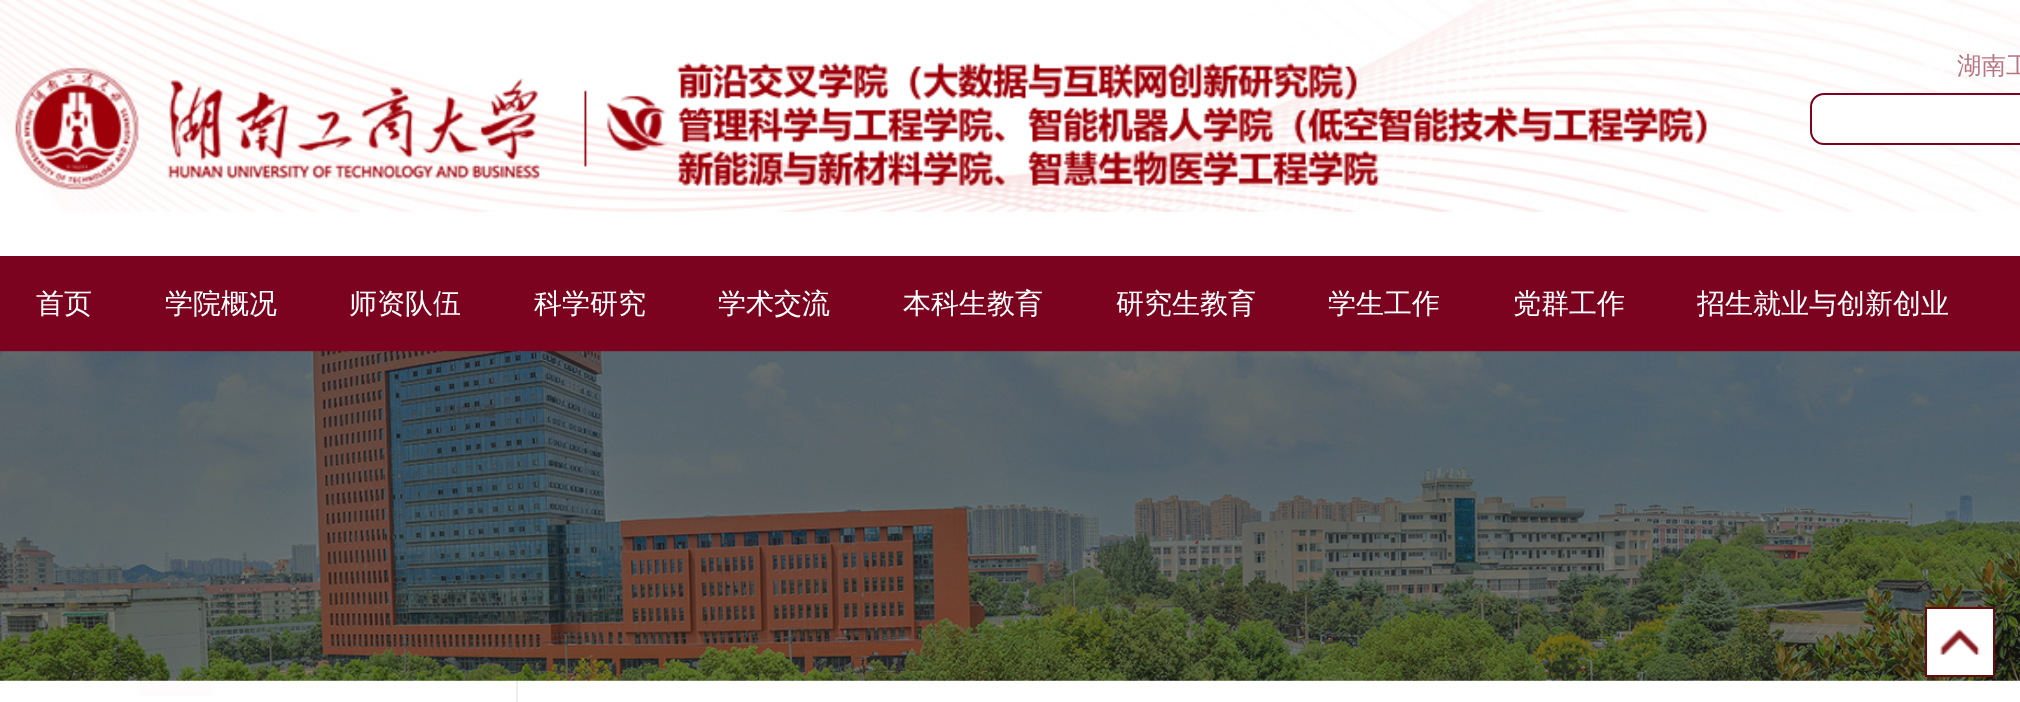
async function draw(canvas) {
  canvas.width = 2020;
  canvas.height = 702;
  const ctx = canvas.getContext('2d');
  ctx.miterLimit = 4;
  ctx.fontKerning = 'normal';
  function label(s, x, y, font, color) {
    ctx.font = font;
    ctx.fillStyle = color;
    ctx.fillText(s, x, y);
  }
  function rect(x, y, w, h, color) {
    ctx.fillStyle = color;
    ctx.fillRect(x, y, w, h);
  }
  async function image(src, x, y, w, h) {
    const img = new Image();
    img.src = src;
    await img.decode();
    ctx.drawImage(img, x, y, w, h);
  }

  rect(0, 0, 2020, 702, '#fff');
  await image('assets/img1.png', 0, 0, 2020, 212);
  await image('assets/img2.png', 15, 62, 1692, 128);
  await image('assets/img3.png', 1924, 63, 21, 9);
  label('湖南工', 1957, 74, '500 24.5px WenQuanYi Zen Hei', '#b67483');
  ctx.fillStyle = '#fff';
  ctx.beginPath();
  ctx.roundRect(1811, 94, 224, 50, 13);
  ctx.fill();
  ctx.strokeStyle = '#7b031f';
  ctx.lineWidth = 2;
  ctx.stroke();
  rect(0, 256, 2020, 94, '#7b031f');
  label('首页', 36, 313, '500 28px WenQuanYi Zen Hei', '#fff');
  label('学院概况', 165, 313, '500 28px WenQuanYi Zen Hei', '#fff');
  label('师资队伍', 349, 313, '500 28px WenQuanYi Zen Hei', '#fff');
  label('科学研究', 534, 313, '500 28px WenQuanYi Zen Hei', '#fff');
  label('学术交流', 718, 313, '500 28px WenQuanYi Zen Hei', '#fff');
  label('本科生教育', 903, 313, '500 28px WenQuanYi Zen Hei', '#fff');
  label('研究生教育', 1116, 313, '500 28px WenQuanYi Zen Hei', '#fff');
  label('学生工作', 1328, 313, '500 28px WenQuanYi Zen Hei', '#fff');
  label('党群工作', 1513, 313, '500 28px WenQuanYi Zen Hei', '#fff');
  label('招生就业与创新创业', 1697, 313, '500 28px WenQuanYi Zen Hei', '#fff');
  await image('assets/img4.png', 0, 350, 2020, 331);
  rect(1927, 609, 66, 66, '#fff');
  await image('assets/img5.png', 1940, 629, 40, 26);
  ctx.strokeStyle = '#690a0f';
  ctx.strokeRect(1926, 608, 68, 68);
  rect(140, 681, 72, 15, '#fdfbfc');
  rect(516, 681, 2, 21, '#eee');
}

draw(document.querySelector('canvas'));
